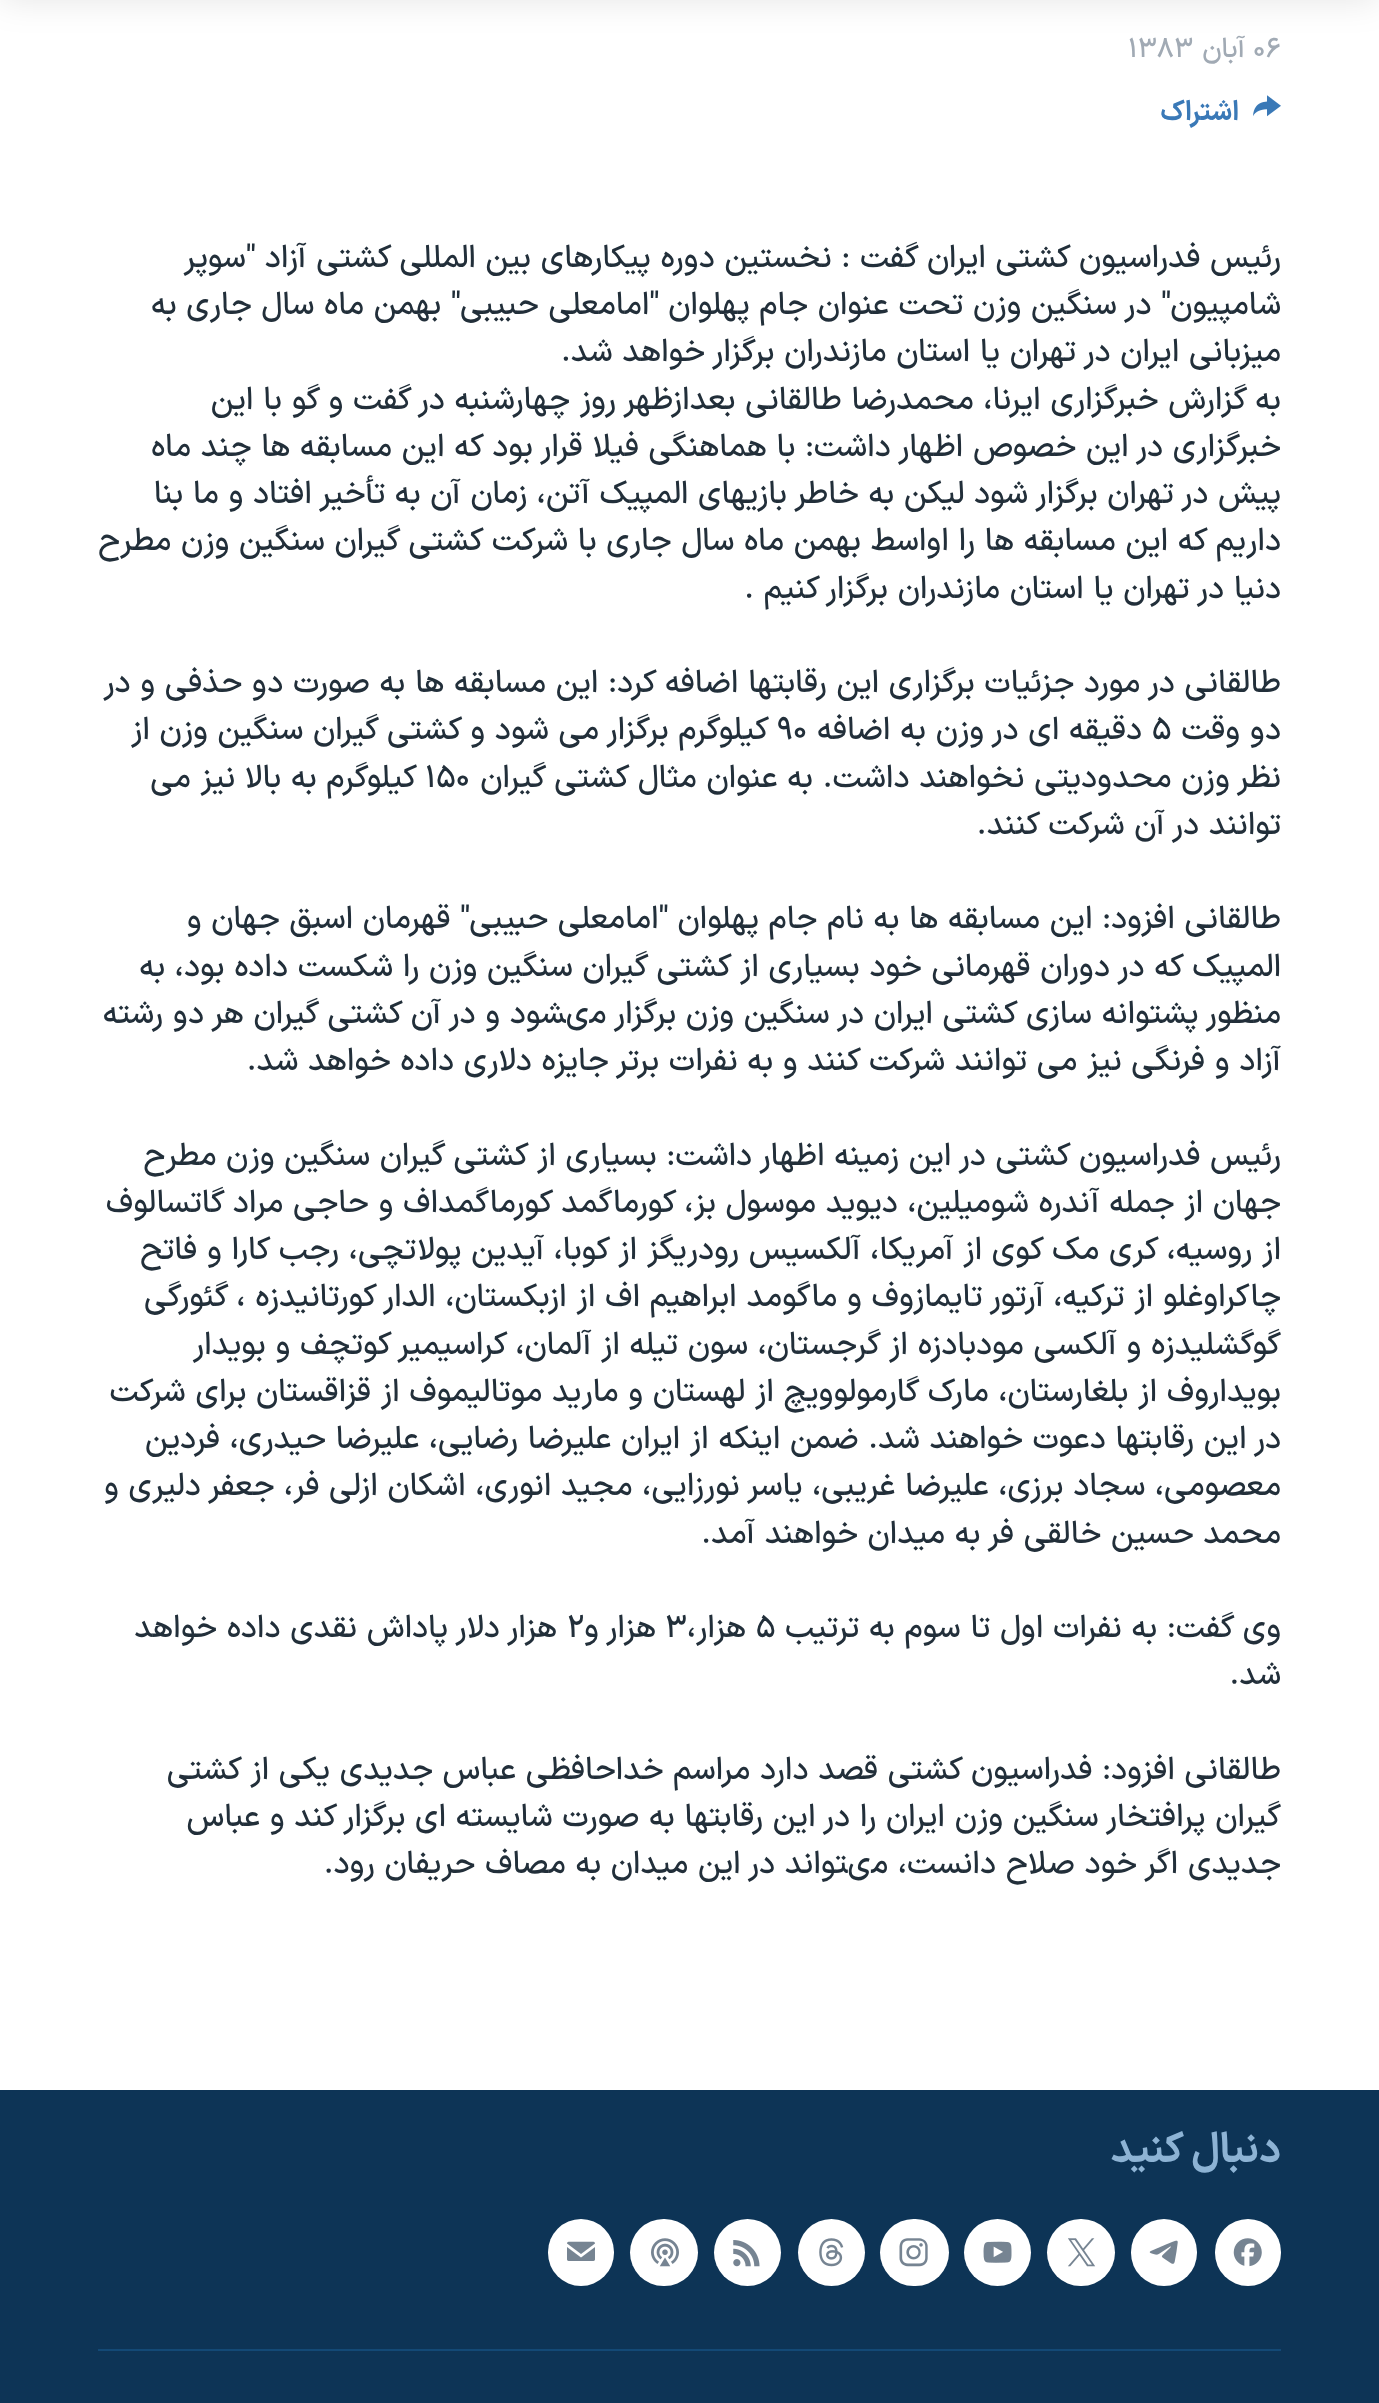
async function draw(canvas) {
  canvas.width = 1379;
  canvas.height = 2403;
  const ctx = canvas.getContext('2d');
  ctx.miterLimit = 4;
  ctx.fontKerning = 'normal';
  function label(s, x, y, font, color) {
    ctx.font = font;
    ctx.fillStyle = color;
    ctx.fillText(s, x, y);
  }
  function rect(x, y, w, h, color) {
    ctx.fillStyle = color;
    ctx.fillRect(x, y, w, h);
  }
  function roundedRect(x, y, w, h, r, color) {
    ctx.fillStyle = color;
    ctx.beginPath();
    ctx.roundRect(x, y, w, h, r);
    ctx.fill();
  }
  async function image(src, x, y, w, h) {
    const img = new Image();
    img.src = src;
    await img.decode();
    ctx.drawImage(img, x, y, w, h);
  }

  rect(0, 0, 1379, 2403, '#fff');
  ctx.fillStyle = '#0000001a';
  ctx.filter = 'blur(17.5px)';
  ctx.beginPath();
  ctx.rect(0, -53, 1379, 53);
  ctx.fill();
  ctx.filter = 'none';
  label('۰۶', 1253, 57, '500 27.5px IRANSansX', '#a1aab4');
  ctx.direction = 'rtl';
  label('آبان', 1245, 57, '500 27.5px IRANSansX', '#a1aab4');
  ctx.direction = 'ltr';
  label('۱۳۸۳', 1128, 57, '500 27.5px IRANSansX', '#a1aab4');
  await image('assets/img1.png', 1253, 95, 28, 22);
  ctx.direction = 'rtl';
  label('اشتراک', 1239, 120, 'bold 27.5px IRANSansX', '#3a79b7');
  label('رئيس فدراسيون کشتى ايران گفت : نخستين دوره پيکارهاى بين المللى کشتى آزاد "سوپر', 1281, 267, '500 31.5px IRANSansX', '#222f3a');
  label('شامپيون" در سنگين وزن تحت عنوان جام پهلوان "امامعلى حبيبى" بهمن ماه سال جارى به', 1281, 314, '500 31.5px IRANSansX', '#222f3a');
  label('ميزبانى ايران در تهران يا استان مازندران برگزار خواهد شد.', 1281, 361, '500 31.5px IRANSansX', '#222f3a');
  label('به گزارش خبرگزاری ايرنا، محمدرضا طالقانى بعدازظهر روز چهارشنبه در گفت و گو با اين', 1281, 409, '500 31.5px IRANSansX', '#222f3a');
  label('خبرگزاری در اين خصوص اظهار داشت: با هماهنگى فيلا قرار بود که اين مسابقه ها چند ماه', 1281, 456, '500 31.5px IRANSansX', '#222f3a');
  label('پيش در تهران برگزار شود ليکن به خاطر بازيهاى المپيک آتن، زمان آن به تأخير افتاد و ما بنا', 1281, 503, '500 31.5px IRANSansX', '#222f3a');
  label('داريم که اين مسابقه ها را اواسط بهمن ماه سال جارى با شرکت کشتى گيران سنگين وزن مطرح', 1281, 550, '500 31.5px IRANSansX', '#222f3a');
  label('دنيا در تهران يا استان مازندران برگزار کنيم .', 1281, 598, '500 31.5px IRANSansX', '#222f3a');
  label('طالقانى در مورد جزئيات برگزارى اين رقابتها اضافه کرد: اين مسابقه ها به صورت دو حذفى و در', 1281, 692, '500 31.5px IRANSansX', '#222f3a');
  label('دو وقت', 1281, 739, '500 31.5px IRANSansX', '#222f3a');
  ctx.direction = 'ltr';
  label('۵', 1152, 739, '500 31.5px IRANSansX', '#222f3a');
  ctx.direction = 'rtl';
  label('دقيقه اى در وزن به اضافه', 1142, 739, '500 31.5px IRANSansX', '#222f3a');
  ctx.direction = 'ltr';
  label('۹۰', 777, 739, '500 31.5px IRANSansX', '#222f3a');
  ctx.direction = 'rtl';
  label('کيلوگرم برگزار مى شود و کشتى گيران سنگين وزن از', 769, 739, '500 31.5px IRANSansX', '#222f3a');
  label('نظر وزن محدوديتى نخواهند داشت. به عنوان مثال کشتى گيران', 1281, 787, '500 31.5px IRANSansX', '#222f3a');
  ctx.direction = 'ltr';
  label('۱۵۰', 425, 787, '500 31.5px IRANSansX', '#222f3a');
  ctx.direction = 'rtl';
  label('کيلوگرم به بالا نيز مى', 417, 787, '500 31.5px IRANSansX', '#222f3a');
  label('توانند در آن شرکت کنند.', 1281, 834, '500 31.5px IRANSansX', '#222f3a');
  label('طالقانى افزود: اين مسابقه ها به نام جام پهلوان "امامعلى حبيبى" قهرمان اسبق جهان و', 1281, 928, '500 31.5px IRANSansX', '#222f3a');
  label('المپيک که در دوران قهرمانى خود بسيارى از کشتى گيران سنگين وزن را شکست داده بود، به', 1281, 976, '500 31.5px IRANSansX', '#222f3a');
  label('منظور پشتوانه سازى کشتى ايران در سنگين وزن برگزار مىشود و در آن کشتى گيران هر دو رشته', 1281, 1023, '500 31.5px IRANSansX', '#222f3a');
  label('آزاد و فرنگى نيز مى توانند شرکت کنند و به نفرات برتر جايزه دلارى داده خواهد شد.', 1281, 1070, '500 31.5px IRANSansX', '#222f3a');
  label('رئيس فدراسيون کشتى در اين زمينه اظهار داشت: بسيارى از کشتى گيران سنگين وزن مطرح', 1281, 1165, '500 31.5px IRANSansX', '#222f3a');
  label('جهان از جمله آندره شوميلين، ديويد موسول بز، کورماگمد کورماگمداف و حاجى مراد گاتسالوف', 1281, 1212, '500 31.5px IRANSansX', '#222f3a');
  label('از روسيه، کرى مک کوى از آمريکا، آلکسيس رودريگز از کوبا، آيدين پولاتچى، رجب کارا و فاتح', 1281, 1259, '500 31.5px IRANSansX', '#222f3a');
  label('چاکراوغلو از ترکيه، آرتور تايمازوف و ماگومد ابراهيم اف از ازبکستان، الدار کورتانيدزه ، گئورگى', 1281, 1306, '500 31.5px IRANSansX', '#222f3a');
  label('گوگشليدزه و آلکسى مودبادزه از گرجستان، سون تيله از آلمان، کراسيمير کوتچف و بويدار', 1281, 1354, '500 31.5px IRANSansX', '#222f3a');
  label('بويداروف از بلغارستان، مارک گارمولوويچ از لهستان و ماريد موتاليموف از قزاقستان براى شرکت', 1281, 1401, '500 31.5px IRANSansX', '#222f3a');
  label('در اين رقابتها دعوت خواهند شد. ضمن اينکه از ايران عليرضا رضايى، عليرضا حيدرى، فردين', 1281, 1448, '500 31.5px IRANSansX', '#222f3a');
  label('معصومى، سجاد برزى، عليرضا غريبى، ياسر نورزايى، مجيد انورى، اشکان ازلى فر، جعفر دليرى و', 1281, 1495, '500 31.5px IRANSansX', '#222f3a');
  label('محمد حسين خالقى فر به ميدان خواهند آمد.', 1281, 1543, '500 31.5px IRANSansX', '#222f3a');
  label('وى گفت: به نفرات اول تا سوم به ترتيب', 1281, 1637, '500 31.5px IRANSansX', '#222f3a');
  ctx.direction = 'ltr';
  label('۵', 756, 1637, '500 31.5px IRANSansX', '#222f3a');
  ctx.direction = 'rtl';
  label('هزار،', 746, 1637, '500 31.5px IRANSansX', '#222f3a');
  ctx.direction = 'ltr';
  label('۳', 665, 1637, '500 31.5px IRANSansX', '#222f3a');
  ctx.direction = 'rtl';
  label('هزار و', 656, 1637, '500 31.5px IRANSansX', '#222f3a');
  ctx.direction = 'ltr';
  label('۲', 567, 1637, '500 31.5px IRANSansX', '#222f3a');
  ctx.direction = 'rtl';
  label('هزار دلار پاداش نقدى داده خواهد', 557, 1637, '500 31.5px IRANSansX', '#222f3a');
  label('شد.', 1281, 1684, '500 31.5px IRANSansX', '#222f3a');
  label('طالقانى افزود: فدراسيون کشتى قصد دارد مراسم خداحافظى عباس جديدى يکى از کشتى', 1281, 1779, '500 31.5px IRANSansX', '#222f3a');
  label('گيران پرافتخار سنگين وزن ايران را در اين رقابتها به صورت شايسته اى برگزار کند و عباس', 1281, 1826, '500 31.5px IRANSansX', '#222f3a');
  label('جديدى اگر خود صلاح دانست، مىتواند در اين ميدان به مصاف حريفان رود.', 1281, 1873, '500 31.5px IRANSansX', '#222f3a');
  rect(0, 2090, 1379, 313, '#0d3456');
  label('دنبال کنید', 1281, 2162, 'bold 41.5px IRANSansX', '#8db3d4');
  roundedRect(1215, 2219, 66, 67, 33, '#fff');
  await image('assets/img2.png', 1233, 2238, 29, 29);
  roundedRect(1131, 2219, 66, 67, 33, '#fff');
  await image('assets/img3.png', 1149, 2240, 29, 24);
  roundedRect(1047, 2219, 68, 67, 33.5, '#fff');
  await image('assets/img4.png', 1068, 2238, 28, 29);
  ctx.beginPath();
  ctx.arc(997.5, 2252.5, 33.5, 0, 2 * Math.PI);
  ctx.fill();
  await image('assets/img5.png', 983, 2241, 29, 22);
  roundedRect(880, 2219, 69, 67, 33.5, '#fff');
  await image('assets/img6.png', 899, 2238, 29, 29);
  ctx.beginPath();
  ctx.arc(831.5, 2252.5, 33.5, 0, 2 * Math.PI);
  ctx.fill();
  await image('assets/img7.png', 819, 2238, 25, 29);
  ctx.beginPath();
  ctx.arc(747.5, 2252.5, 33.5, 0, 2 * Math.PI);
  ctx.fill();
  await image('assets/img8.png', 733, 2240, 27, 27);
  roundedRect(630, 2219, 68, 67, 33.5, '#fff');
  await image('assets/img9.png', 651, 2238, 28, 29);
  roundedRect(548, 2219, 66, 67, 33, '#fff');
  await image('assets/img10.png', 567, 2241, 28, 20);
  rect(98, 2349, 1183, 2, '#134976');
}

draw(document.querySelector('canvas'));
